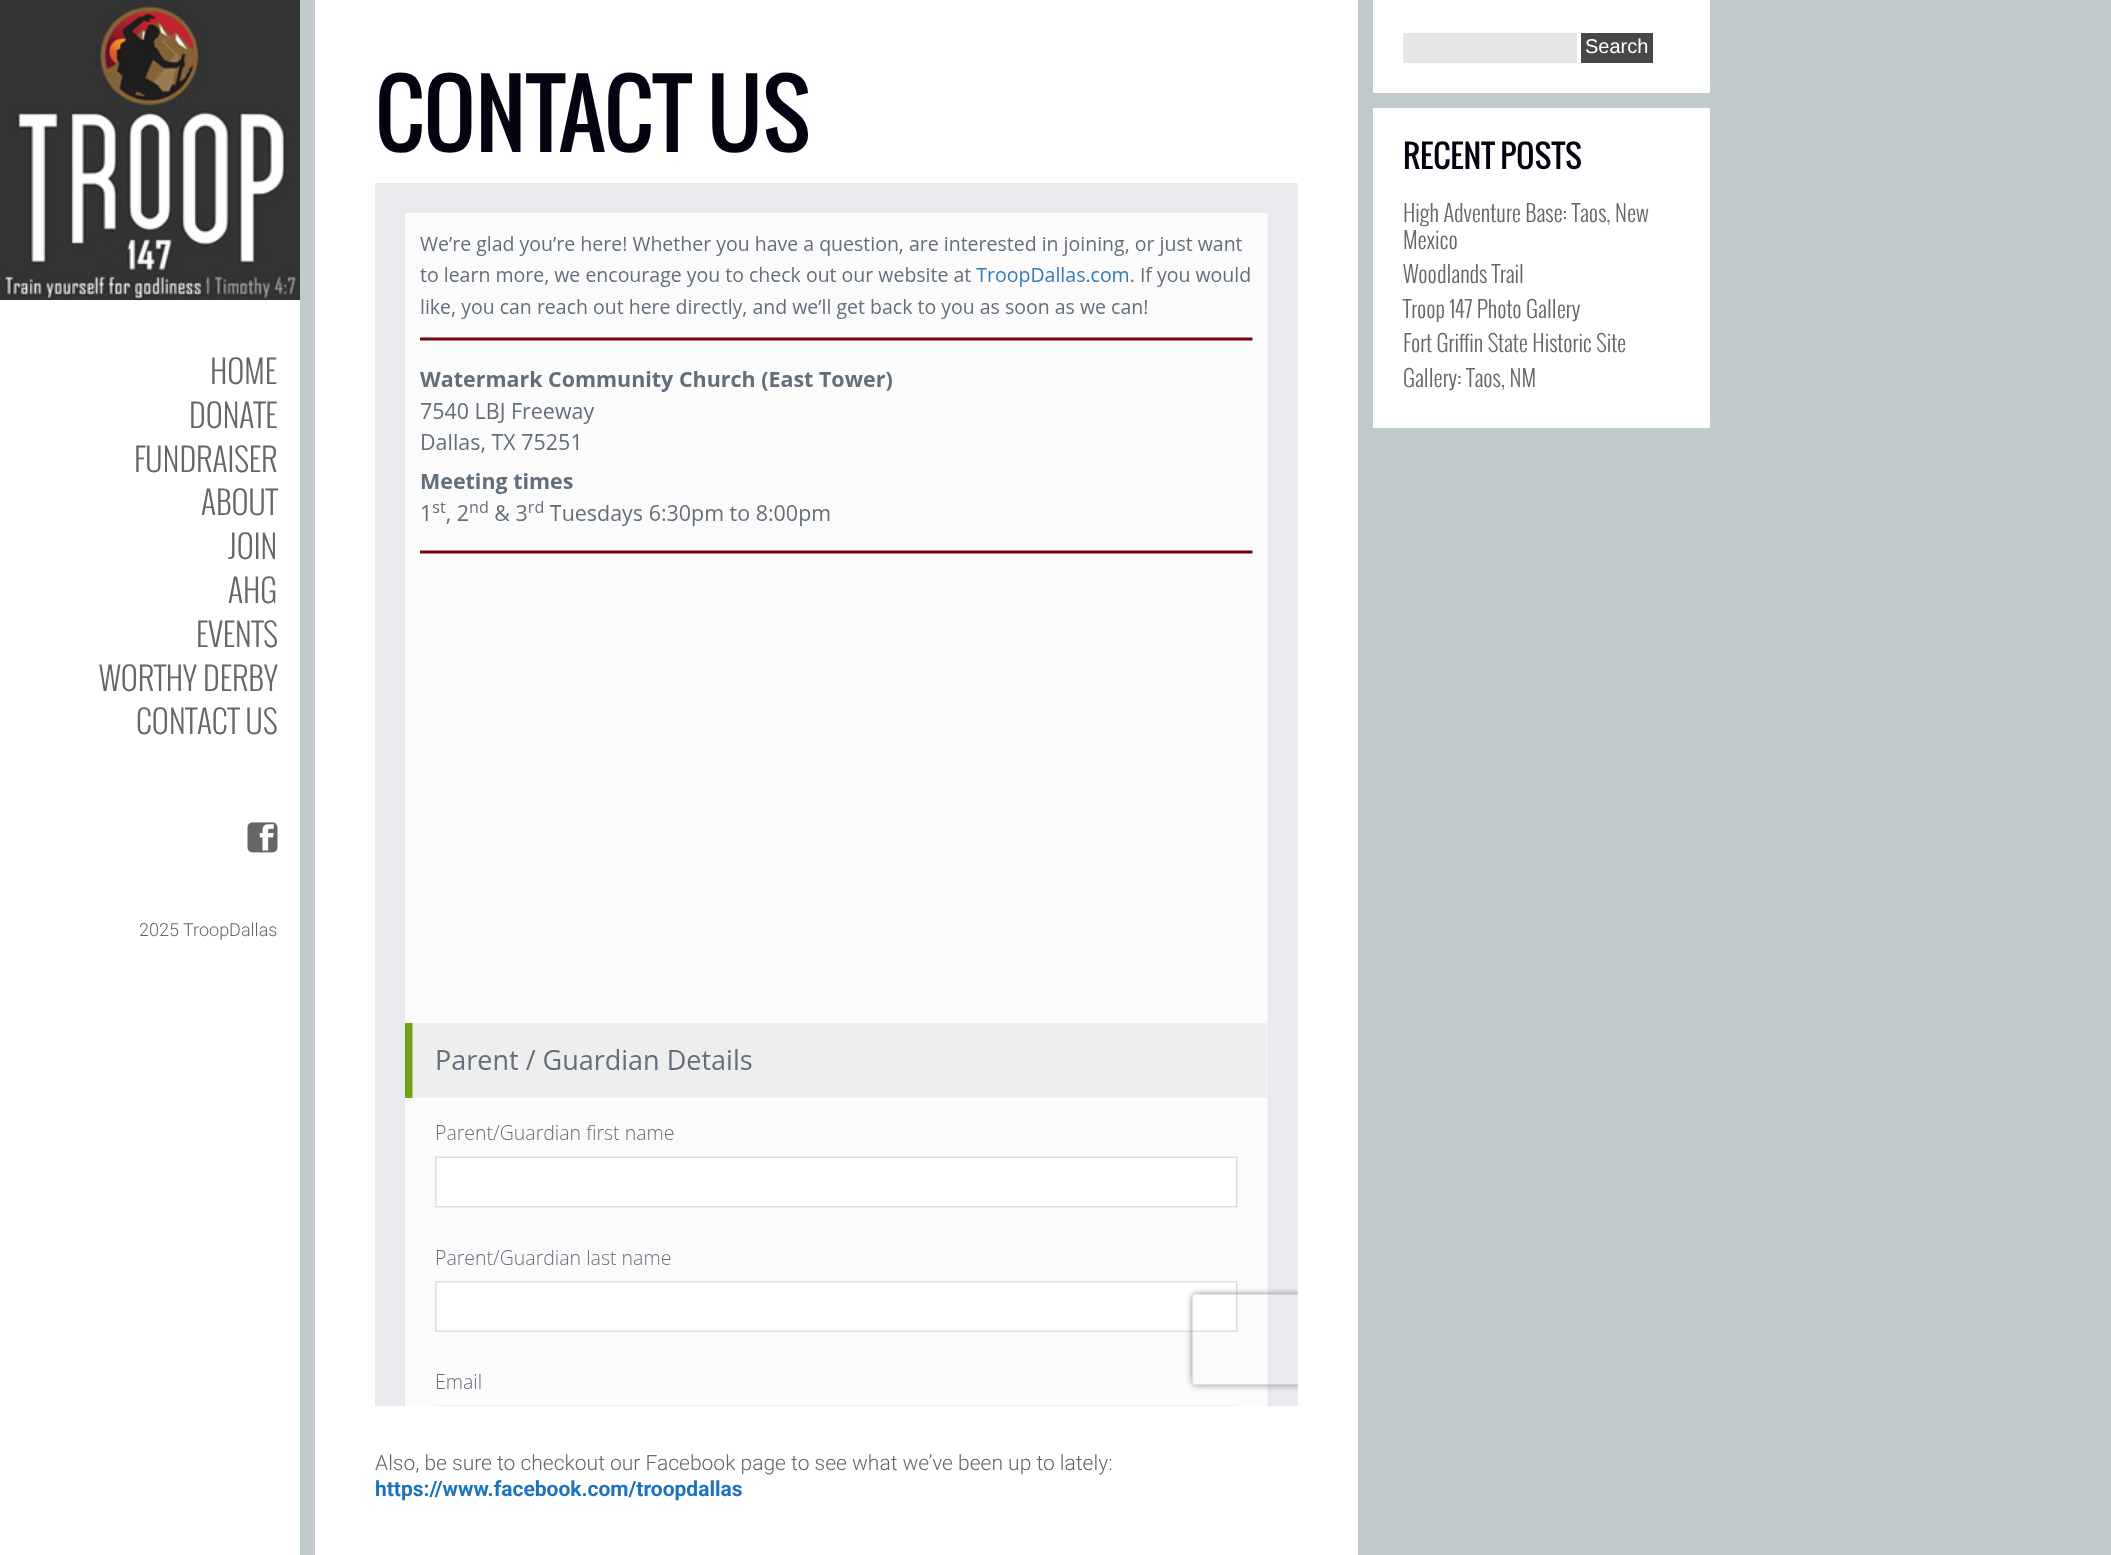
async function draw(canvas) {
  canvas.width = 2111;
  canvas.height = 1555;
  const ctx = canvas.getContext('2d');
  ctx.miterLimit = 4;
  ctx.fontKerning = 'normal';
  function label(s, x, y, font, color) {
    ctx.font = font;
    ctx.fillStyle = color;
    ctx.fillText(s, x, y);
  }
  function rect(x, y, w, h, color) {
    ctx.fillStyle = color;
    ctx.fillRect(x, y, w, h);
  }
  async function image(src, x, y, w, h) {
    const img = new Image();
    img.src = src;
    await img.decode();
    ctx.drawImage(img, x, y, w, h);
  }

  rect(0, 0, 2111, 1555, '#c0c9cc');
  rect(0, 300, 300, 1255, '#fff');
  rect(315, 0, 1043, 1555, '#fff');
  label('CONTACT US', 375, 152, '90px Oswald', '#070211');
  await image('assets/img1.png', 375, 183, 923, 1223);
  label('Also, be sure to checkout our Facebook page to see what we’ve been up to lately:', 375, 1470, '300 21px Roboto', '#666');
  label('https://www.facebook.com/troopdallas', 375, 1496, 'bold 21px Roboto', '#1e73be');
  rect(1373, 0, 337, 93, '#fff');
  rect(1403, 33, 174, 30, '#e6e6e6');
  rect(1581, 33, 72, 30, '#474747');
  label('Search', 1585, 53, '20px Liberation Sans', '#fff');
  rect(1373, 108, 337, 320, '#fff');
  label('RECENT POSTS', 1403, 169, '31.5px Oswald', '#070211');
  label('High Adventure Base: Taos, New', 1403, 222, '300 22.5px Oswald', '#666');
  label('Mexico', 1403, 249, '300 22.5px Oswald', '#666');
  label('Woodlands Trail', 1403, 283, '300 22.5px Oswald', '#666');
  label('Troop 147 Photo Gallery', 1403, 318, '300 22.5px Oswald', '#666');
  label('Fort Griffin State Historic Site', 1403, 352, '300 22.5px Oswald', '#666');
  label('Gallery: Taos, NM', 1403, 387, '300 22.5px Oswald', '#666');
  await image('assets/img2.png', 0, 0, 300, 300);
  label('HOME', 210, 384, '300 31.5px Oswald', '#666');
  label('DONATE', 189, 428, '300 31.5px Oswald', '#666');
  label('FUNDRAISER', 134, 472, '300 31.5px Oswald', '#666');
  label('ABOUT', 201, 515, '300 31.5px Oswald', '#666');
  label('JOIN', 228, 559, '300 31.5px Oswald', '#666');
  label('AHG', 228, 603, '300 31.5px Oswald', '#666');
  label('EVENTS', 196, 647, '300 31.5px Oswald', '#666');
  label('WORTHY DERBY', 99, 691, '300 31.5px Oswald', '#666');
  label('CONTACT US', 136, 734, '300 31.5px Oswald', '#666');
  await image('assets/img3.png', 247, 822, 31, 31);
  label('2025 TroopDallas', 139, 936, '300 18px Roboto', '#666');
}

draw(document.querySelector('canvas'));
